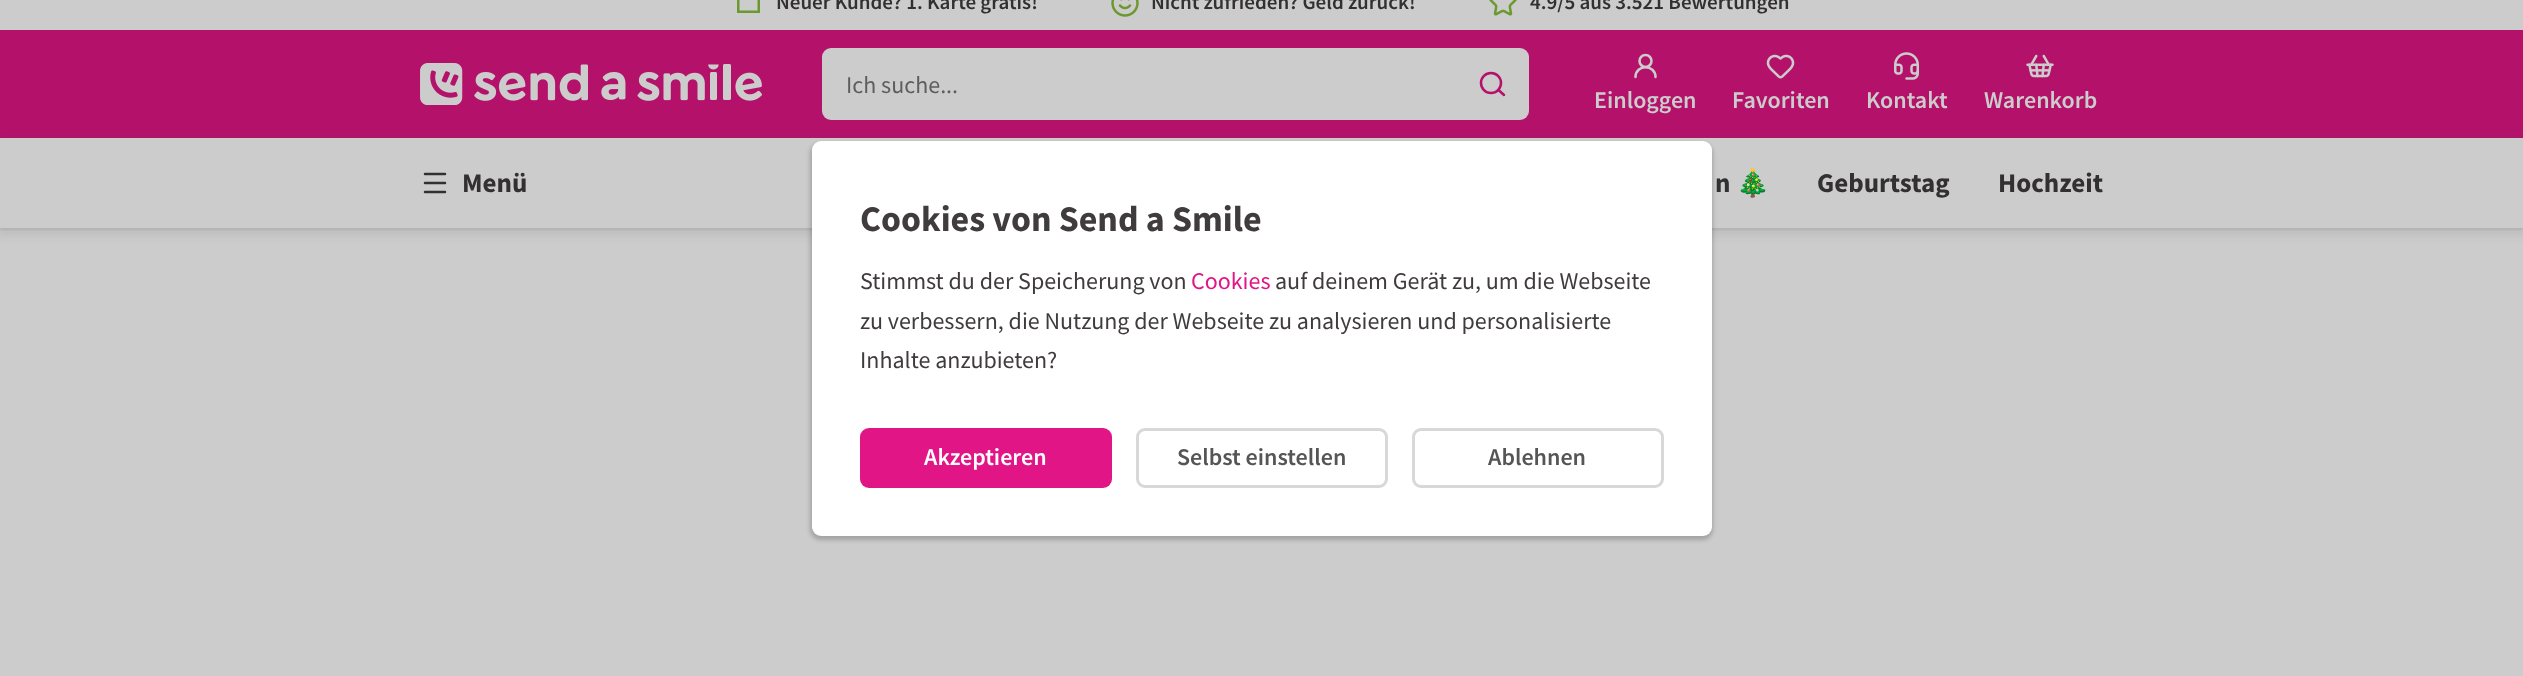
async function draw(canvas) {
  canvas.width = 2523;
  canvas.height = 676;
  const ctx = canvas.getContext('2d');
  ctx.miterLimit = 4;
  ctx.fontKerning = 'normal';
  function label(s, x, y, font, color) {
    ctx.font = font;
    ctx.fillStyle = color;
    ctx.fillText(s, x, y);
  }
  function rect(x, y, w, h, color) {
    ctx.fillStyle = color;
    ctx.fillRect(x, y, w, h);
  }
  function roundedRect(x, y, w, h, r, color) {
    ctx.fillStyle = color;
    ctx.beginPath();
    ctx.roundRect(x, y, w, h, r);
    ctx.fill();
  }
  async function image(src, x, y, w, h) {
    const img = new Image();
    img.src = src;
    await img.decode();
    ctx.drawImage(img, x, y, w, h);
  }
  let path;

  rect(0, 0, 2523, 676, '#ccc');
  ctx.strokeStyle = '#6c9830';
  ctx.lineWidth = 2.5;
  ctx.strokeRect(738.25, -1.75, 20.5, 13.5);
  label('Neuer Kunde? 1. Karte gratis!', 776, 9, '600 21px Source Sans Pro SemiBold', '#333032');
  await image('assets/img1.png', 1111, 0, 28, 17);
  label('Nicht zufrieden? Geld zurück!', 1151, 9, '600 21px Source Sans Pro SemiBold', '#333032');
  await image('assets/img2.png', 1489, 0, 28, 16);
  label('4.9/5 aus 3.521 Bewertungen', 1530, 9, '600 21px Source Sans Pro SemiBold', '#333032');
  rect(0, 30, 2523, 108, '#b4116b');
  await image('assets/img3.png', 420, 63, 342, 42);
  roundedRect(822, 48, 707, 72, 9, '#ccc');
  label('Ich suche...', 846, 93, '24px Source Sans Pro', '#5e5e5e');
  path = new Path2D('M1504 95L1498.5 90');
  ctx.strokeStyle = '#b4116b';
  ctx.lineCap = 'round';
  ctx.lineJoin = 'round';
  ctx.stroke(path);
  ctx.beginPath();
  ctx.arc(1491, 83, 10, 0, 2 * Math.PI);
  ctx.stroke();
  ctx.beginPath();
  ctx.arc(1645.5, 61, 6, 0, 2 * Math.PI);
  ctx.strokeStyle = '#ccc';
  ctx.stroke();
  path = new Path2D('M1655.5 77C1655.5 64 1635.5 64 1635.5 77');
  ctx.stroke(path);
  label('Einloggen', 1594, 108, '600 24px Source Sans Pro SemiBold', '#ccc');
  await image('assets/img4.png', 1766, 54, 29, 25);
  label('Favoriten', 1732, 108, '600 24px Source Sans Pro SemiBold', '#ccc');
  await image('assets/img5.png', 1894, 52, 25, 28);
  label('Kontakt', 1866, 108, '600 24px Source Sans Pro SemiBold', '#ccc');
  await image('assets/img6.png', 2026, 54, 28, 24);
  label('Warenkorb', 1984, 108, '600 24px Source Sans Pro SemiBold', '#ccc');
  ctx.save();
  path = new Path2D('M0 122H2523V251H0ZM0 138H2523V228H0Z');
  ctx.clip(path, 'evenodd');
  ctx.fillStyle = '#4f4f4f1a';
  ctx.filter = 'blur(4.5px)';
  ctx.beginPath();
  ctx.rect(-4, 137, 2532, 99);
  ctx.fill();
  ctx.filter = 'none';
  ctx.restore();
  ctx.save();
  ctx.beginPath();
  ctx.rect(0, 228, 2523, 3);
  ctx.clip();
  ctx.fillStyle = '#3535351a';
  ctx.filter = 'blur(1.5px)';
  ctx.beginPath();
  ctx.rect(0, 140, 2523, 90);
  ctx.fill();
  ctx.filter = 'none';
  ctx.restore();
  path = new Path2D('M425 174H445M425 183H445M425 192H445');
  ctx.strokeStyle = '#333032';
  ctx.stroke(path);
  label('Menü', 462, 192, 'bold 27px Source Sans Pro', '#333032');
  label('n', 1715, 192, 'bold 27px Source Sans Pro', '#333032');
  label('🎄', 1736, 192, 'bold 27px Noto Color Emoji', '#333032');
  label('Geburtstag', 1817, 192, 'bold 27px Source Sans Pro', '#333032');
  label('Hochzeit', 1998, 192, 'bold 27px Source Sans Pro', '#333032');
  ctx.fillStyle = '#00000033';
  ctx.filter = 'blur(2px)';
  ctx.beginPath();
  ctx.roundRect(810, 143, 903, 397, 11);
  ctx.fill();
  ctx.filter = 'none';
  roundedRect(812, 141, 900, 395, 9, '#fff');
  label('Cookies von Send a Smile', 860, 231, 'bold 36px Source Sans Pro', '#403c3e');
  label('Stimmst du der Speicherung von', 860, 289, '24px Source Sans Pro', '#403c3e');
  label('Cookies', 1191, 289, '24px Source Sans Pro', '#e11586');
  label('auf deinem Gerät zu, um die Webseite', 1275, 289, '24px Source Sans Pro', '#403c3e');
  label('zu verbessern, die Nutzung der Webseite zu analysieren und personalisierte', 860, 329, '24px Source Sans Pro', '#403c3e');
  label('Inhalte anzubieten?', 860, 368, '24px Source Sans Pro', '#403c3e');
  roundedRect(860, 428, 252, 60, 9, '#e11586');
  label('Akzeptieren', 924, 465, '600 24px Source Sans Pro SemiBold', '#fff');
  ctx.beginPath();
  ctx.roundRect(1137.5, 429.5, 249, 57, 7.5);
  ctx.strokeStyle = '#d8d8d8';
  ctx.lineWidth = 3;
  ctx.lineJoin = 'miter';
  ctx.stroke();
  label('Selbst einstellen', 1177, 465, '600 24px Source Sans Pro SemiBold', '#555');
  ctx.beginPath();
  ctx.roundRect(1413.5, 429.5, 249, 57, 7.5);
  ctx.stroke();
  label('Ablehnen', 1488, 465, '600 24px Source Sans Pro SemiBold', '#555');
}

draw(document.querySelector('canvas'));
